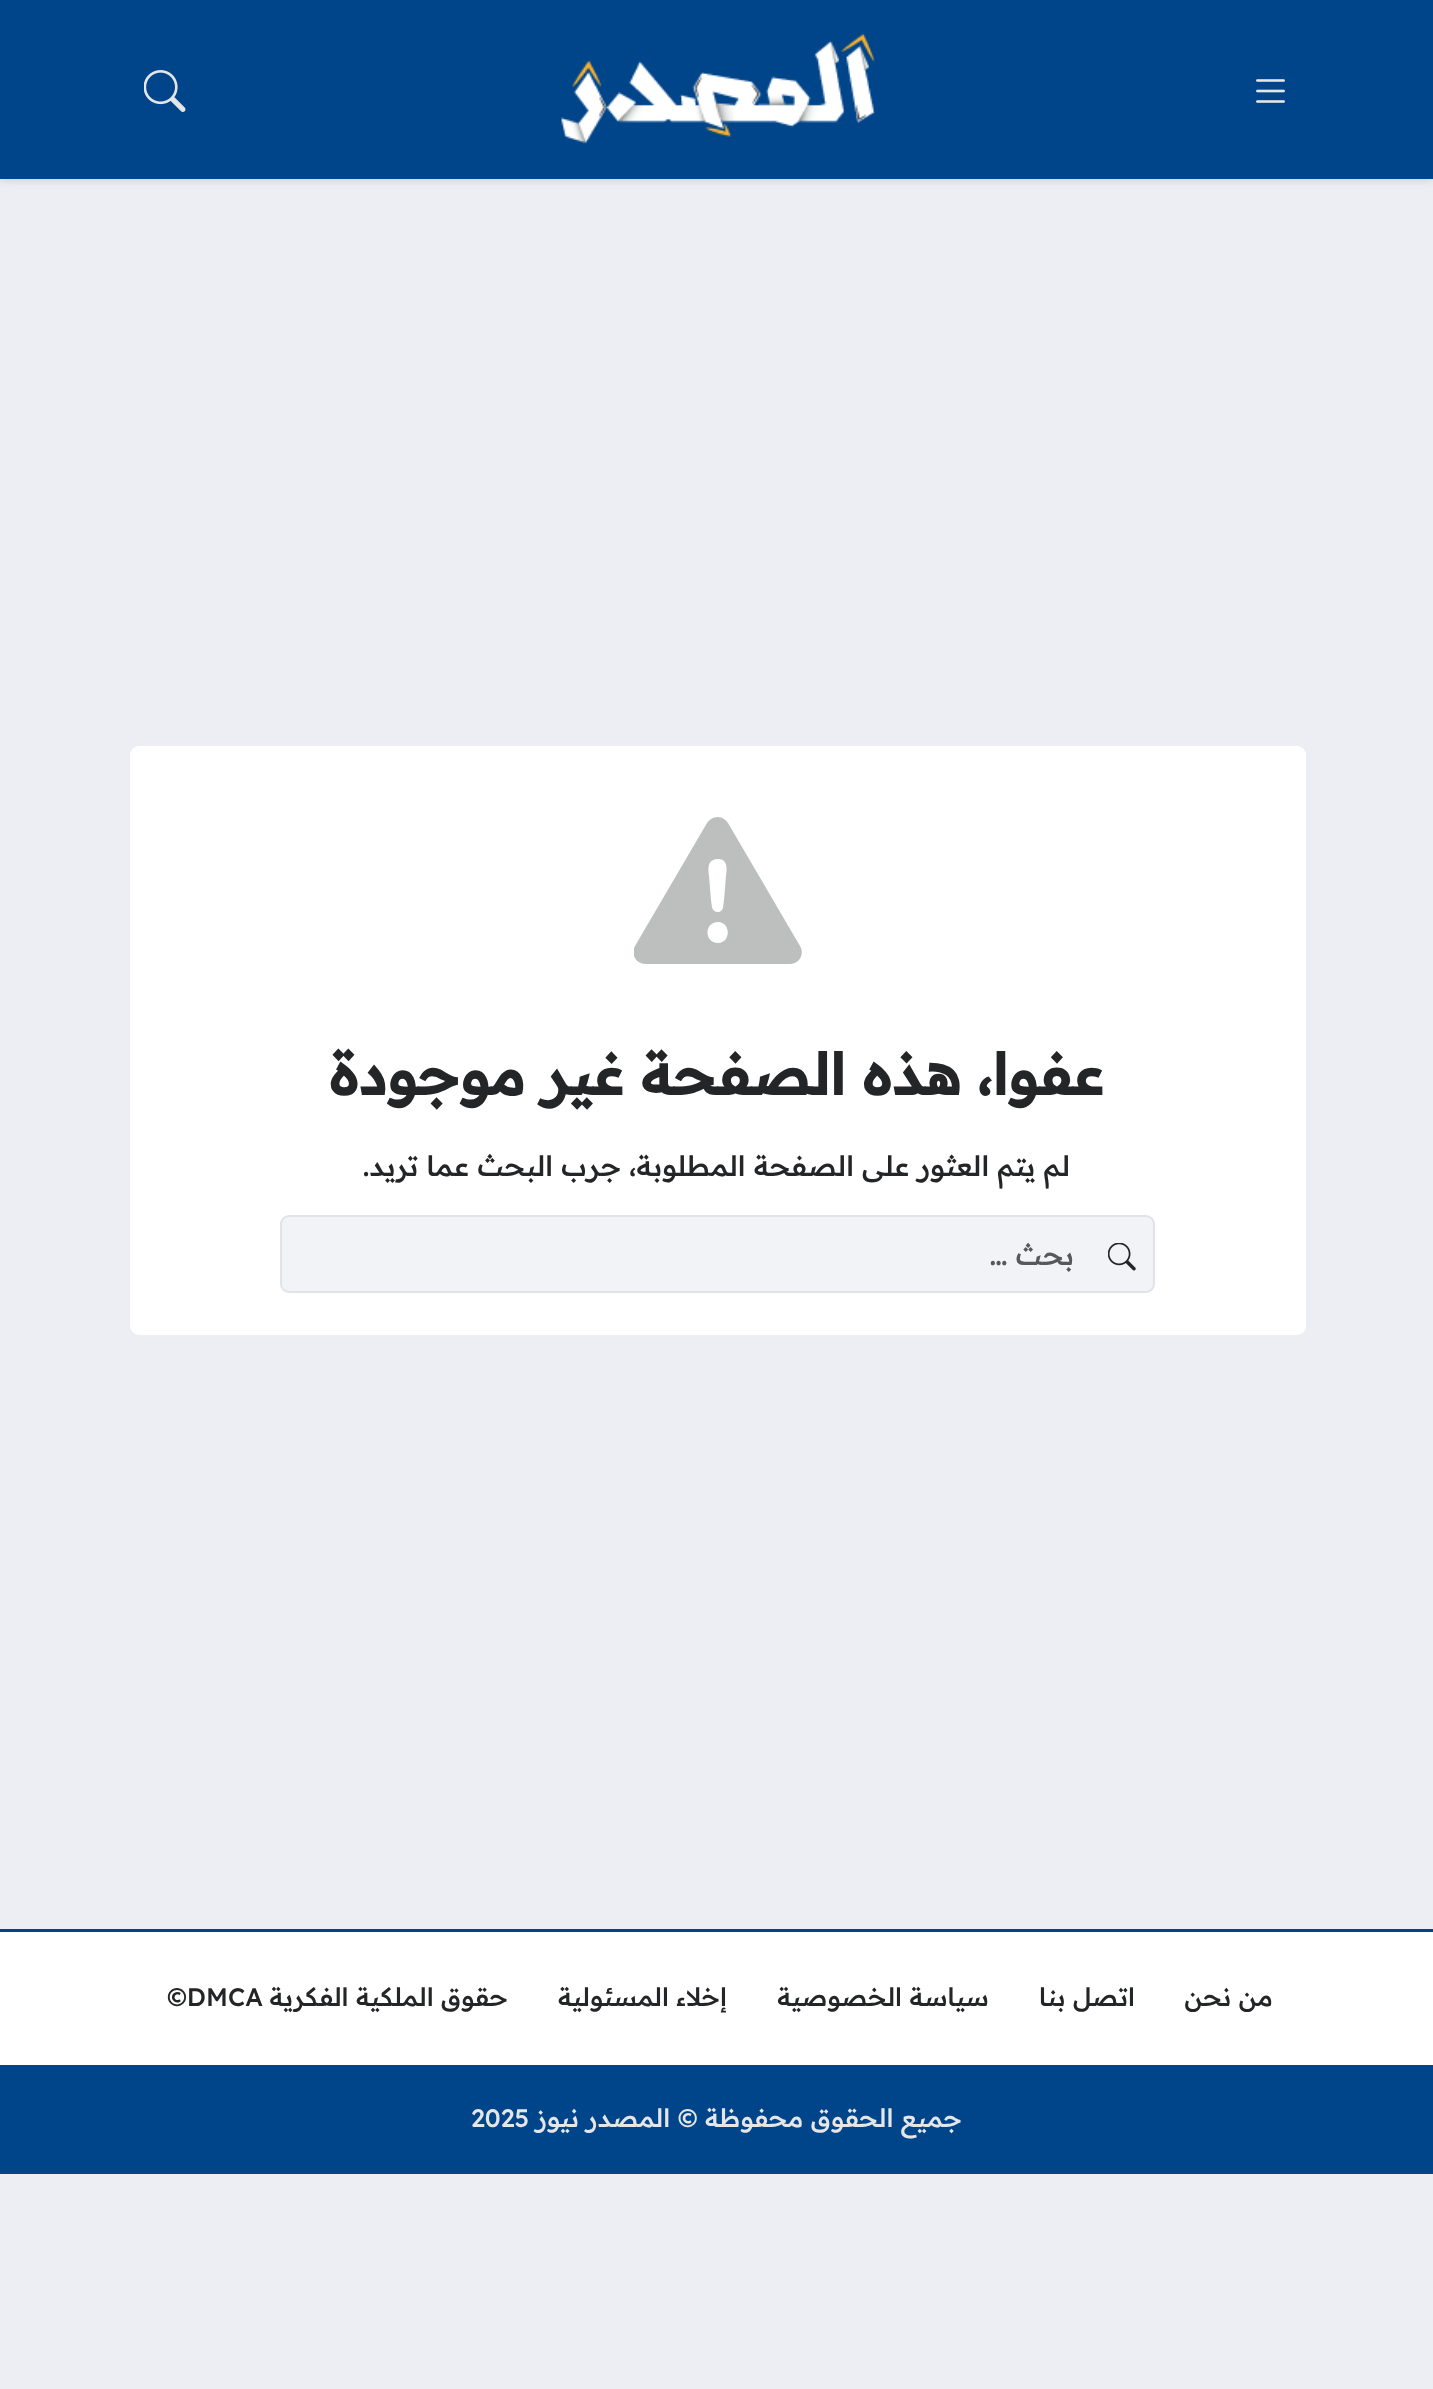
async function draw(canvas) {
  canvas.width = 1433;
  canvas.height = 2389;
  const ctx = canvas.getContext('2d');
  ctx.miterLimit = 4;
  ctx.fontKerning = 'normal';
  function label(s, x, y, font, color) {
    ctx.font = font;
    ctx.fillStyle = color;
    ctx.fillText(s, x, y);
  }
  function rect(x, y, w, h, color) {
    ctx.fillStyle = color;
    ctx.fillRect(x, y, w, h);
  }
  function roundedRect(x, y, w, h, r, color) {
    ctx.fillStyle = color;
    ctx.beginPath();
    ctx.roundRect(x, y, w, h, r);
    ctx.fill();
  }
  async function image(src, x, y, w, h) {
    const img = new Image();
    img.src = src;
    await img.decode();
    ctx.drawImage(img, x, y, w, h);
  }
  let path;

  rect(0, 0, 1433, 2389, '#edeef3');
  ctx.fillStyle = '#c3c3c3';
  ctx.filter = 'blur(4.5px)';
  ctx.beginPath();
  ctx.rect(0, 0, 1433, 179);
  ctx.fill();
  ctx.filter = 'none';
  rect(0, 0, 1433, 179, '#00458a');
  await image('assets/img1.png', 1256, 79, 29, 24);
  await image('assets/img2.png', 561, 34, 314, 110);
  await image('assets/img3.png', 144, 70, 42, 42);
  roundedRect(130, 746, 1176, 589, 9, '#fff');
  ctx.save();
  ctx.beginPath();
  ctx.rect(634, 807, 168, 168);
  ctx.clip();
  ctx.fillStyle = '#bdbebe';
  path = new Path2D('M728 823C726 820 722 817 718 817C713 817 709 820 707 823L635 946C630 954 636 964 646 964H790C799 964 805 954 800 946ZM718 859C728 859 727 869 726 876L724 900C723 905 724 912 718 912C711 912 712 905 711 900L709 876C708 869 707 859 718 859M718 922C731 922 731 943 718 943C704 943 704 922 718 922');
  ctx.fill(path);
  ctx.restore();
  ctx.direction = 'rtl';
  label('عفوا، هذه الصفحة غير موجودة', 1104, 1095, 'bold 57.3px Readex Pro', '#242526');
  label('لم يتم العثور على الصفحة المطلوبة، جرب البحث عما تريد.', 1070, 1176, '500 28px Readex Pro', '#242526');
  ctx.fillStyle = '#f2f3f6';
  ctx.beginPath();
  ctx.roundRect(281, 1216, 873, 76, 8);
  ctx.fill();
  ctx.strokeStyle = '#e2e3e7';
  ctx.lineWidth = 2;
  ctx.stroke();
  await image('assets/img4.png', 1108, 1243, 28, 28);
  label('بحث …', 1074, 1265, '500 28px Readex Pro', '#55595c');
  rect(0, 1929, 1433, 3, '#00458a');
  rect(0, 1932, 1433, 133, '#fff');
  label('من نحن', 1273, 2006, '500 25.25px Readex Pro', '#242526');
  label('اتصل بنا', 1135, 2006, '500 25.25px Readex Pro', '#242526');
  label('سياسة الخصوصية', 989, 2006, '500 25.25px Readex Pro', '#242526');
  label('إخلاء المسئولية', 727, 2006, '500 25.25px Readex Pro', '#242526');
  label('حقوق الملكية الفكرية', 508, 2006, '500 25.25px Readex Pro', '#242526');
  ctx.direction = 'ltr';
  label('©DMCA', 167, 2006, '500 25.25px Readex Pro', '#242526');
  rect(0, 2065, 1433, 109, '#00458a');
  ctx.direction = 'rtl';
  label('جميع الحقوق محفوظة © المصدر نيوز', 962, 2127, '500 25.25px Readex Pro', '#e6e6e6');
  ctx.direction = 'ltr';
  label('2025', 471, 2127, '500 25.25px Readex Pro', '#e6e6e6');
}

draw(document.querySelector('canvas'));
